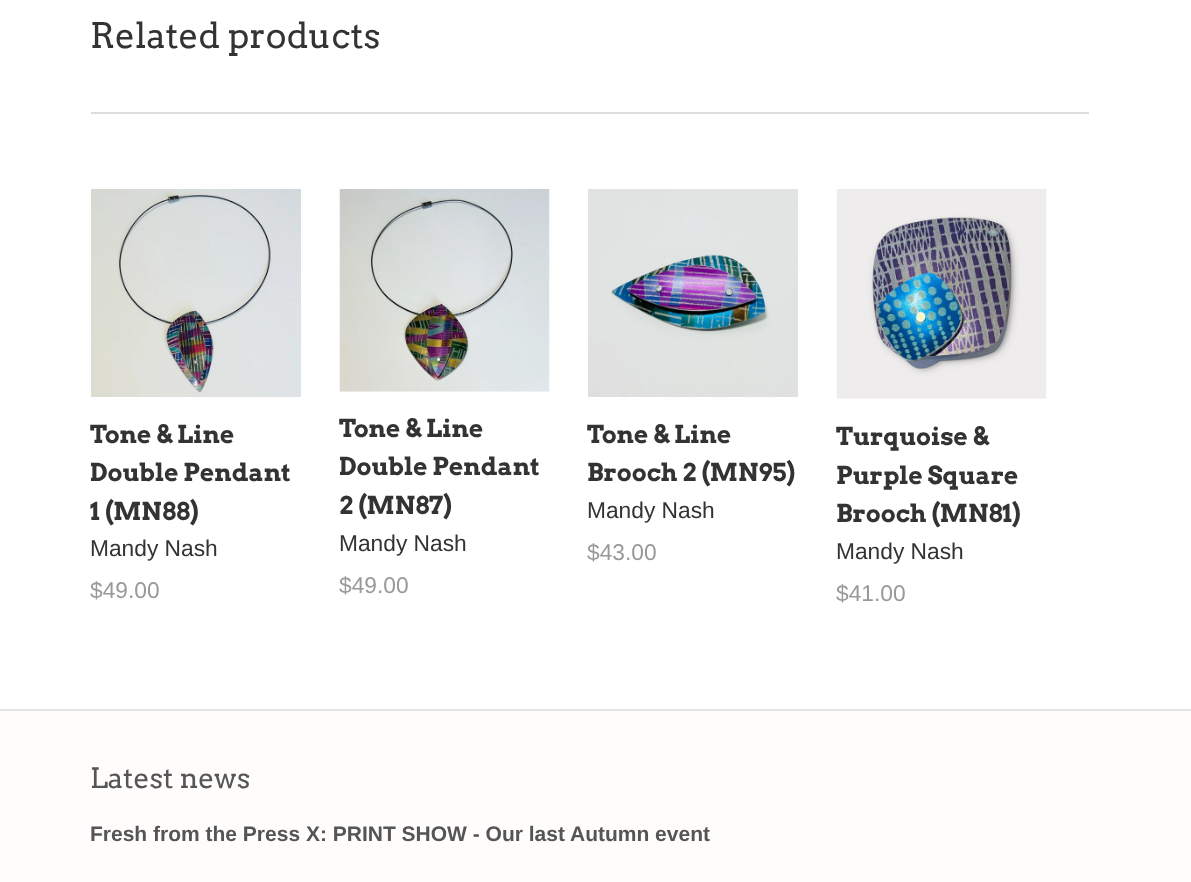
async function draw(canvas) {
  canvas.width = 1191;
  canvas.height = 882;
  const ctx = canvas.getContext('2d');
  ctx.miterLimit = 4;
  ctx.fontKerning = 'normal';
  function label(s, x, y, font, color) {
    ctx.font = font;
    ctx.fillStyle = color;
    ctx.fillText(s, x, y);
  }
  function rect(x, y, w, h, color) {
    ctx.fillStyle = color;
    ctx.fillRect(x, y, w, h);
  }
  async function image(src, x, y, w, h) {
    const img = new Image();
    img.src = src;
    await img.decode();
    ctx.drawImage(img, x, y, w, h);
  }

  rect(0, 0, 1191, 882, '#fff');
  rect(91, 112, 998, 2, '#ddd');
  label('Related products', 90, 48, '35px Arvo', '#333');
  await image('assets/img1.png', 91, 189, 210, 208);
  label('Tone & Line', 90, 443, 'bold 24.5px Arvo', '#333');
  label('Double Pendant', 90, 481, 'bold 24.5px Arvo', '#333');
  label('1 (MN88)', 90, 520, 'bold 24.5px Arvo', '#333');
  label('Mandy Nash', 90, 556, '22.75px Liberation Sans', '#333');
  label('$49.00', 90, 598, '22.75px Liberation Sans', '#999');
  await image('assets/img2.png', 339, 189, 211, 203);
  label('Tone & Line', 339, 437, 'bold 24.5px Arvo', '#333');
  label('Double Pendant', 339, 475, 'bold 24.5px Arvo', '#333');
  label('2 (MN87)', 339, 514, 'bold 24.5px Arvo', '#333');
  label('Mandy Nash', 339, 551, '22.75px Liberation Sans', '#333');
  label('$49.00', 339, 593, '22.75px Liberation Sans', '#999');
  await image('assets/img3.png', 588, 189, 210, 208);
  label('Tone & Line', 587, 443, 'bold 24.5px Arvo', '#333');
  label('Brooch 2 (MN95)', 587, 481, 'bold 24.5px Arvo', '#333');
  label('Mandy Nash', 587, 518, '22.75px Liberation Sans', '#333');
  label('$43.00', 587, 560, '22.75px Liberation Sans', '#999');
  await image('assets/img4.png', 836, 189, 211, 210);
  label('Turquoise &', 836, 445, 'bold 24.5px Arvo', '#333');
  label('Purple Square', 836, 484, 'bold 24.5px Arvo', '#333');
  label('Brooch (MN81)', 836, 522, 'bold 24.5px Arvo', '#333');
  label('Mandy Nash', 836, 559, '22.75px Liberation Sans', '#333');
  label('$41.00', 836, 601, '22.75px Liberation Sans', '#999');
  rect(0, 711, 1191, 171, '#fffcfc');
  rect(0, 709, 1191, 2, '#e5e5e5');
  label('Latest news', 90, 788, '28px Arvo', '#555');
  label('Fresh from the Press X: PRINT SHOW - Our last Autumn event', 90, 841, 'bold 21px Liberation Sans', '#555');
}

draw(document.querySelector('canvas'));
